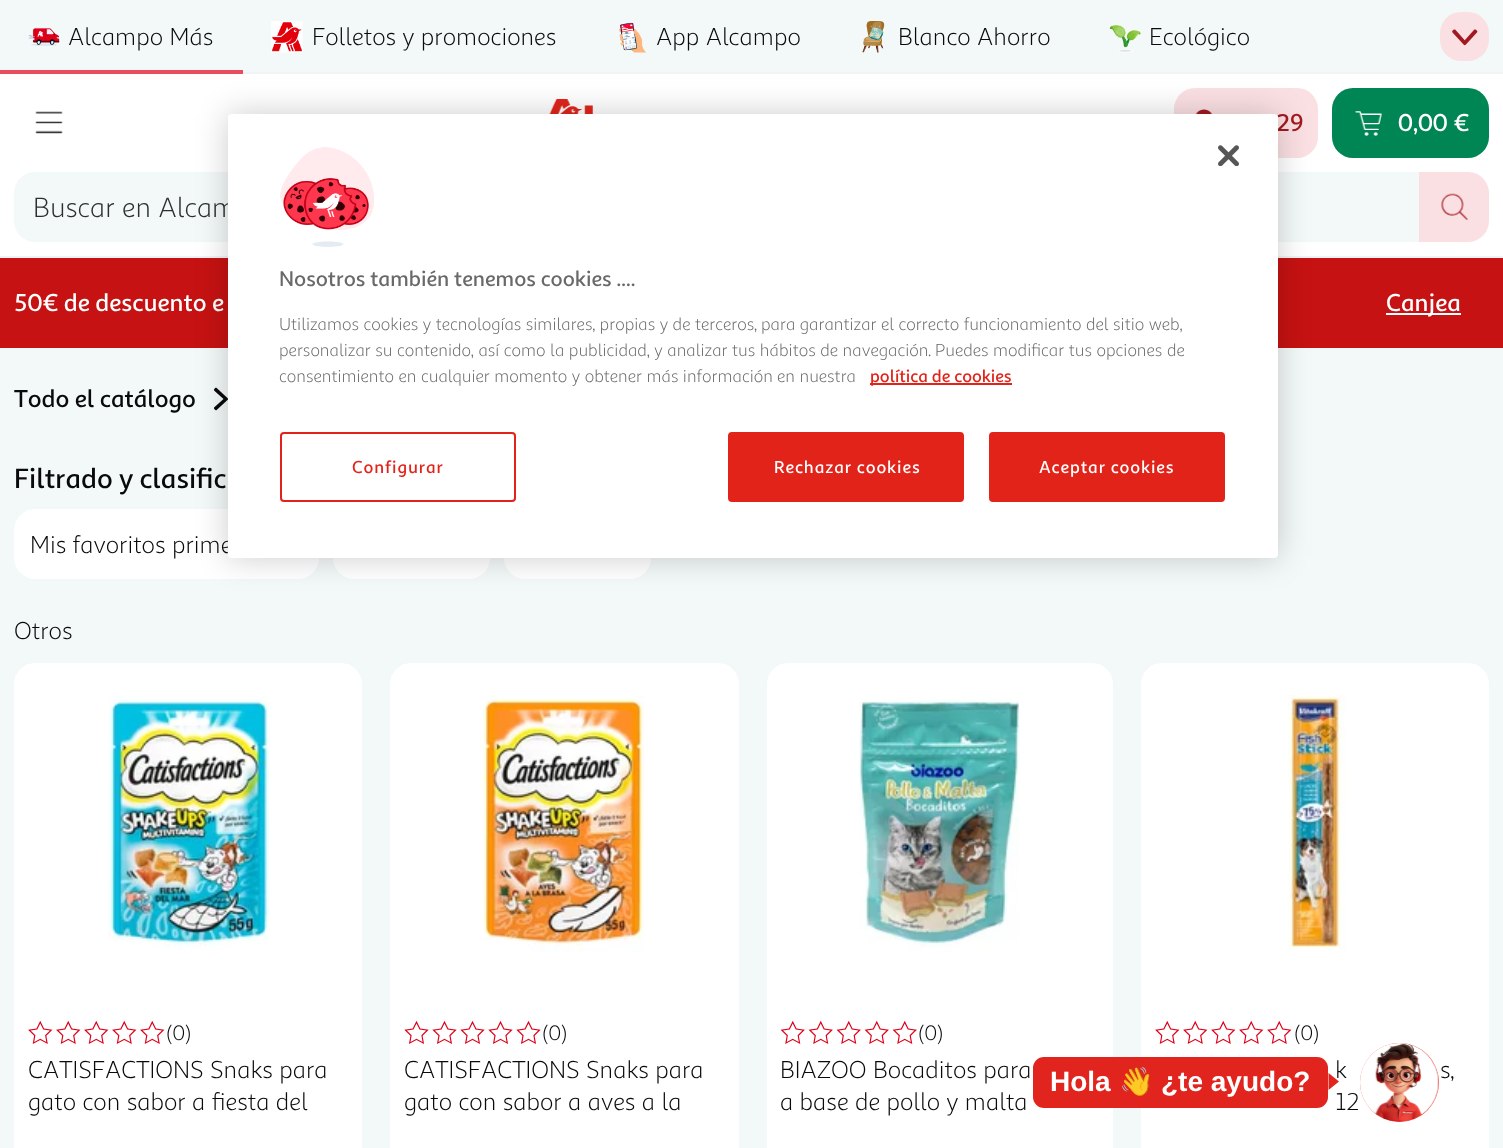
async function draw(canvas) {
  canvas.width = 1503;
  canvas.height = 1148;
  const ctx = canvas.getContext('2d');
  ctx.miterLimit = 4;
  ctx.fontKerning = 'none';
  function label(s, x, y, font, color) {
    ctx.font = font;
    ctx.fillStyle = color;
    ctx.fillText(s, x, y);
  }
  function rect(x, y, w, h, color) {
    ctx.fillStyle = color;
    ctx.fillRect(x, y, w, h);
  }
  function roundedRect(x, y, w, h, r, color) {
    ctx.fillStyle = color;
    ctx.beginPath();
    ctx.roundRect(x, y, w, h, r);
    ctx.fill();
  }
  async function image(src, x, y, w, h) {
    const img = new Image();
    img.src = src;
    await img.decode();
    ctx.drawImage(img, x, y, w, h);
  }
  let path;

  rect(0, 0, 1503, 1148, '#f3f8f8');
  await image('assets/img1.png', 28, 28, 32, 18);
  label('Alcampo Más', 68, 45, '24.5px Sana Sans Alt', '#0a0a0a');
  rect(0, 70, 243, 4, '#e94c5e');
  await image('assets/img2.png', 271, 21, 32, 32);
  label('Folletos y promociones', 312, 45, '24.5px Sana Sans Alt', '#0a0a0a');
  await image('assets/img3.png', 619, 22, 27, 31);
  label('App Alcampo', 656, 45, '24.5px Sana Sans Alt', '#0a0a0a');
  await image('assets/img4.png', 862, 21, 23, 32);
  label('Blanco Ahorro', 898, 45, '24.5px Sana Sans Alt', '#0a0a0a');
  await image('assets/img5.png', 1109, 25, 32, 28);
  label('Ecológico', 1149, 45, '24.5px Sana Sans Alt', '#0a0a0a');
  roundedRect(1440, 12, 49, 49, 21, '#fbe0e3');
  await image('assets/img6.png', 1452, 29, 26, 17);
  rect(243, 72, 1260, 2, '#f2f3f4');
  rect(0, 256, 1503, 2, '#f2f3f4');
  rect(0, 74, 1503, 182, '#fff');
  await image('assets/img7.png', 35, 111, 28, 23);
  await image('assets/img8.png', 549, 99, 44, 15);
  roundedRect(1174, 88, 144, 70, 21, '#fbe0e3');
  await image('assets/img9.png', 1195, 109, 17, 5);
  label('29', 1276, 131, '500 24.5px Sana Sans Alt', '#a21a20');
  roundedRect(1332, 88, 157, 70, 21, '#008554');
  await image('assets/img10.png', 1354, 111, 28, 25);
  label('0,00 €', 1398, 131, '500 24.5px Sana Sans Alt', '#fff');
  ctx.fillStyle = '#f3f8f8';
  ctx.beginPath();
  ctx.roundRect(14, 172, 1405, 70, [21, 0, 0, 21]);
  ctx.fill();
  label('Buscar en Alcam', 33, 217, '28px Sana Sans Alt', '#2e2e2e');
  ctx.fillStyle = '#fbe0e3';
  ctx.beginPath();
  ctx.roundRect(1419, 172, 70, 70, [0, 21, 21, 0]);
  ctx.fill();
  await image('assets/img11.png', 1441, 193, 27, 27);
  rect(0, 258, 1503, 90, '#c61212');
  label('50€ de descuento e', 14, 311, '500 24.5px Sana Sans Alt', '#fff');
  rect(1386, 313, 75, 2, '#fff');
  label('Canjea', 1386, 311, '500 24.5px Sana Sans Alt', '#fff');
  label('Todo el catálogo', 14, 407, '500 24.5px Sana Sans Alt', '#0a0a0a');
  await image('assets/img12.png', 214, 387, 14, 24);
  label('Filtrado y clasific', 14, 488, '500 28px Sana Sans Alt', '#0a0a0a');
  roundedRect(14, 509, 305, 70, 21, '#fff');
  label('Mis favoritos prime', 30, 553, '24.5px Sana Sans Alt', '#0a0a0a');
  roundedRect(333, 509, 157, 70, 21, '#fff');
  roundedRect(504, 509, 147, 70, 21, '#fff');
  label('Otros', 14, 639, '24.5px Sana Sans Alt', '#0a0a0a');
  roundedRect(14, 663, 348, 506, 21, '#fff');
  await image('assets/img13.png', 108, 695, 162, 255);
  await image('assets/img14.png', 28, 1021, 25, 23);
  await image('assets/img14.png', 56, 1021, 25, 23);
  await image('assets/img14.png', 84, 1021, 25, 23);
  await image('assets/img14.png', 112, 1021, 25, 23);
  await image('assets/img14.png', 140, 1021, 25, 23);
  label('(0)', 166, 1040, '21px Sana Sans Alt', '#0a0a0a');
  label('CATISFACTIONS', 28, 1078, '24.5px Sana Sans Alt', '#0a0a0a');
  label('Snaks para', 210, 1078, '24.5px Sana Sans Alt', '#0a0a0a');
  label('gato con sabor a fiesta del', 28, 1110, '24.5px Sana Sans Alt', '#0a0a0a');
  roundedRect(390, 663, 349, 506, 21, '#fff');
  await image('assets/img15.png', 483, 695, 161, 258);
  await image('assets/img16.png', 404, 1021, 25, 23);
  await image('assets/img16.png', 432, 1021, 25, 23);
  await image('assets/img16.png', 460, 1021, 25, 23);
  await image('assets/img17.png', 488, 1021, 25, 23);
  await image('assets/img16.png', 516, 1021, 25, 23);
  label('(0)', 542, 1040, '21px Sana Sans Alt', '#0a0a0a');
  label('CATISFACTIONS', 404, 1078, '24.5px Sana Sans Alt', '#0a0a0a');
  label('Snaks para', 586, 1078, '24.5px Sana Sans Alt', '#0a0a0a');
  label('gato con sabor a aves a la', 404, 1110, '24.5px Sana Sans Alt', '#0a0a0a');
  roundedRect(767, 663, 346, 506, 21, '#fff');
  await image('assets/img18.png', 858, 697, 162, 255);
  await image('assets/img19.png', 780, 1021, 25, 23);
  await image('assets/img19.png', 808, 1021, 25, 23);
  await image('assets/img19.png', 836, 1021, 25, 23);
  await image('assets/img19.png', 864, 1021, 25, 23);
  await image('assets/img19.png', 892, 1021, 25, 23);
  label('(0)', 918, 1040, '21px Sana Sans Alt', '#0a0a0a');
  label('BIAZOO Bocaditos para', 780, 1078, '24.5px Sana Sans Alt', '#0a0a0a');
  ctx.save();
  ctx.beginPath();
  ctx.rect(781, 1054, 318, 63);
  ctx.clip();
  label('a base de pollo y malta', 780, 1110, '24.5px Sana Sans Alt', '#0a0a0a');
  ctx.restore();
  roundedRect(1141, 663, 348, 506, 21, '#fff');
  await image('assets/img20.png', 1288, 695, 58, 255);
  await image('assets/img14.png', 1155, 1021, 25, 23);
  await image('assets/img14.png', 1183, 1021, 25, 23);
  await image('assets/img14.png', 1211, 1021, 25, 23);
  await image('assets/img14.png', 1239, 1021, 25, 23);
  await image('assets/img21.png', 1267, 1021, 25, 23);
  label('(0)', 1294, 1040, '21px Sana Sans Alt', '#0a0a0a');
  label('k', 1335, 1078, '24.5px Sana Sans Alt', '#0a0a0a');
  label('s,', 1440, 1078, '24.5px Sana Sans Alt', '#0a0a0a');
  label('12', 1336, 1110, '24.5px Sana Sans Alt', '#0a0a0a');
  ctx.fillStyle = '#00000033';
  ctx.filter = 'blur(16px)';
  ctx.beginPath();
  ctx.roundRect(228, 114, 1050, 444, 4);
  ctx.fill();
  ctx.filter = 'none';
  roundedRect(228, 114, 1050, 444, 4, '#fff');
  await image('assets/img22.png', 1218, 145, 21, 21);
  await image('assets/img23.png', 280, 147, 94, 100);
  label('Nosotros también tenemos cookies ....', 279, 286, '500 21.5px Sana Sans Alt', '#696969');
  ctx.wordSpacing = '-0.1px';
  label('Utilizamos cookies y tecnologías similares, propias y de terceros,', 279, 330, '17.43px Sana Sans Alt', '#696969');
  label('para garantizar el correcto funcionamiento', 761, 330, '17.43px Sana Sans Alt', '#696969');
  label('del sitio web,', 1086, 330, '17.43px Sana Sans Alt', '#696969');
  ctx.wordSpacing = '0px';
  label('personalizar su contenido, así como la publicidad, y analizar tus hábitos de navegación.', 279, 356, '17.43px Sana Sans Alt', '#696969');
  label('Puedes modificar tus opciones de', 935, 356, '17.43px Sana Sans Alt', '#696969');
  ctx.wordSpacing = '-0.1px';
  label('consentimiento en cualquier momento y obtener más información', 279, 382, '17.43px Sana Sans Alt', '#696969');
  label('en nuestra', 777, 382, '17.43px Sana Sans Alt', '#696969');
  rect(870, 383, 142, 2, '#e2231a');
  ctx.wordSpacing = '0px';
  label('política de cookies', 870, 382, '500 17.43px Sana Sans Alt', '#e2231a');
  ctx.beginPath();
  ctx.roundRect(281, 433, 234, 68, 3);
  ctx.strokeStyle = '#e2231a';
  ctx.lineWidth = 2;
  ctx.stroke();
  ctx.letterSpacing = '0.9px';
  label('Configurar', 352, 473, '500 17.43px Sana Sans Alt', '#e2231a');
  ctx.beginPath();
  ctx.roundRect(729, 433, 234, 68, 3);
  ctx.fill();
  ctx.stroke();
  label('Rechazar cookies', 774, 473, '500 17.43px Sana Sans Alt', '#fff');
  ctx.fillStyle = '#e2231a';
  ctx.beginPath();
  ctx.roundRect(990, 433, 234, 68, 3);
  ctx.fill();
  ctx.stroke();
  label('Aceptar cookies', 1039, 473, '500 17.43px Sana Sans Alt', '#fff');
  roundedRect(1033, 1057, 295, 51, 11, '#e1241d');
  ctx.letterSpacing = '0px';
  label('Hola', 1050, 1091, 'bold 28px Liberation Sans', '#fff');
  label('👋', 1119, 1091, 'bold 28px Noto Color Emoji', '#fff');
  label('¿te ayudo?', 1161, 1091, 'bold 28px Liberation Sans', '#fff');
  ctx.fillStyle = '#e1241d';
  path = new Path2D('M1328.5 1090V1073L1339 1081.5Z');
  ctx.fill(path);
  ctx.beginPath();
  ctx.arc(1399.5, 1082.5, 39.5, 0, 2 * Math.PI);
  ctx.fill();
  await image('assets/img24.png', 1359, 1043, 80, 79);
}

draw(document.querySelector('canvas'));
